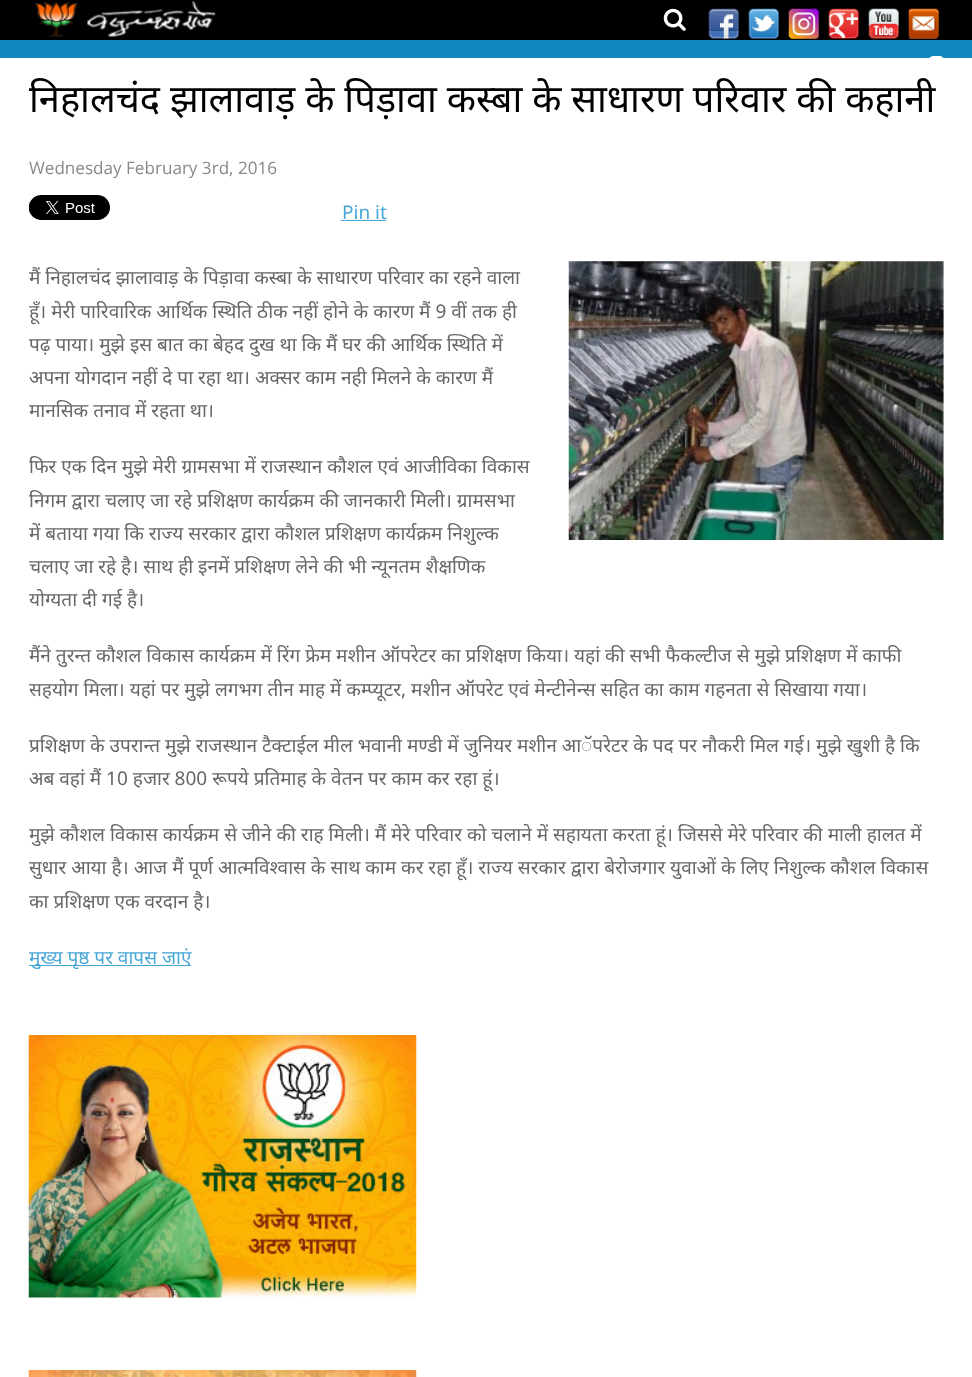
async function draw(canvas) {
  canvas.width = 972;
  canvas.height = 1377;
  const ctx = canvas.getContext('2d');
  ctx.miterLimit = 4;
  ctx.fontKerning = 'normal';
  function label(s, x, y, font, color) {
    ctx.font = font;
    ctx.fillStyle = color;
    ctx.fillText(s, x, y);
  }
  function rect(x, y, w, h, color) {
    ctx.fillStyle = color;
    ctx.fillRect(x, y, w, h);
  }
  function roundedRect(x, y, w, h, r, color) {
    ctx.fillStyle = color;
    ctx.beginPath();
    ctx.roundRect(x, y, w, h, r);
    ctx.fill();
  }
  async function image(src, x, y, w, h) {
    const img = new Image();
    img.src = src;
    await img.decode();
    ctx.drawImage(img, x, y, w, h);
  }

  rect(0, 0, 972, 1377, '#fff');
  rect(0, 40, 972, 18, '#0e88be');
  rect(0, 0, 972, 40, '#000');
  await image('assets/img1.png', 663, 8, 23, 23);
  await image('assets/img2.png', 708, 8, 31, 31);
  await image('assets/img3.png', 748, 8, 31, 31);
  await image('assets/img4.png', 788, 8, 31, 31);
  await image('assets/img5.png', 828, 8, 31, 31);
  await image('assets/img6.png', 868, 8, 31, 31);
  await image('assets/img7.png', 908, 8, 31, 31);
  await image('assets/img8.png', 35, 1, 181, 36);
  roundedRect(929, 56, 15, 9, 4.5, '#fff');
  label('निहालचंद झालावाड़ के पिड़ावा कस्बा के साधारण परिवार की कहानी', 29, 112, '38px Noto Sans', '#000');
  label('Wednesday February 3rd, 2016', 29, 174, '17.1px Open Sans', '#888');
  await image('assets/img9.png', 29, 195, 81, 25);
  label('Pin it', 342, 219, '19px Noto Sans', '#47a7d7');
  rect(341, 220, 45, 1, '#47a7d7');
  ctx.save();
  ctx.beginPath();
  ctx.rect(29, 58, 915, 915);
  ctx.clip();
  label('मैं निहालचंद झालावाड़ के पिड़ावा कस्बा के साधारण परिवार का रहने वाला', 29, 284, '19px Noto Sans', '#666');
  ctx.restore();
  await image('assets/img10.png', 568, 261, 376, 279);
  ctx.save();
  ctx.beginPath();
  ctx.rect(29, 58, 915, 915);
  ctx.clip();
  label('हूँ। मेरी पारिवारिक आर्थिक स्थिति ठीक नहीं होने के कारण मैं 9 वीं तक ही', 29, 318, '19px Noto Sans', '#666');
  ctx.restore();
  label('पढ़ पाया। मुझे इस बात का बेहद दुख था कि मैं घर की आर्थिक स्थिति में', 29, 351, '19px Noto Sans', '#666');
  label('अपना योगदान नहीं दे पा रहा था। अक्सर काम नही मिलने के कारण मैं', 29, 384, '19px Noto Sans', '#666');
  label('मानसिक तनाव में रहता था।', 29, 417, '19px Noto Sans', '#666');
  label('फिर एक दिन मुझे मेरी ग्रामसभा में राजस्थान कौशल एवं आजीविका विकास', 29, 473, '19px Noto Sans', '#666');
  label('निगम द्वारा चलाए जा रहे प्रशिक्षण कार्यक्रम की जानकारी मिली। ग्रामसभा', 29, 507, '19px Noto Sans', '#666');
  ctx.save();
  ctx.beginPath();
  ctx.rect(29, 58, 915, 915);
  ctx.clip();
  label('में बताया गया कि राज्य सरकार द्वारा कौशल प्रशिक्षण कार्यक्रम निशुल्क', 29, 540, '19px Noto Sans', '#666');
  ctx.restore();
  label('चलाए जा रहे है। साथ ही इनमें प्रशिक्षण लेने की भी न्यूनतम शैक्षणिक', 29, 573, '19px Noto Sans', '#666');
  ctx.save();
  ctx.beginPath();
  ctx.rect(29, 58, 915, 915);
  ctx.clip();
  label('योग्यता दी गई है।', 29, 606, '19px Noto Sans', '#666');
  label('मैंने तुरन्त कौशल विकास कार्यक्रम में रिंग फ्रेम मशीन ऑपरेटर का प्रशिक्षण किया। यहां की सभी फैकल्टीज से मुझे प्रशिक्षण में काफी', 29, 662, '19px Noto Sans', '#666');
  ctx.restore();
  label('सहयोग मिला। यहां पर मुझे लगभग तीन माह में कम्प्यूटर, मशीन ऑपरेट एवं मेन्टीनेन्स सहित का काम गहनता से सिखाया गया।', 29, 696, '19px Noto Sans', '#666');
  label('प्रशिक्षण के उपरान्त मुझे राजस्थान टैक्टाईल मील भवानी मण्डी में जुनियर मशीन आॅपरेटर के पद पर नौकरी मिल गई। मुझे खुशी है कि', 29, 752, '19px Noto Sans', '#666');
  label('अब वहां मैं 10 हजार 800 रूपये प्रतिमाह के वेतन पर काम कर रहा हूं।', 29, 785, '19px Noto Sans', '#666');
  ctx.save();
  ctx.beginPath();
  ctx.rect(29, 58, 915, 915);
  ctx.clip();
  label('मुझे कौशल विकास कार्यक्रम से जीने की राह मिली। मैं मेरे परिवार को चलाने में सहायता करता हूं। जिससे मेरे परिवार की माली हालत में', 29, 841, '19px Noto Sans', '#666');
  label('सुधार आया है। आज मैं पूर्ण आत्मविश्वास के साथ काम कर रहा हूँ। राज्य सरकार द्वारा बेरोजगार युवाओं के लिए निशुल्क कौशल विकास', 29, 874, '19px Noto Sans', '#666');
  ctx.restore();
  label('का प्रशिक्षण एक वरदान है।', 29, 908, '19px Noto Sans', '#666');
  rect(29, 965, 162, 1, '#47a7d7');
  ctx.save();
  ctx.beginPath();
  ctx.rect(29, 58, 915, 915);
  ctx.clip();
  label('मुख्य पृष्ठ पर वापस जाएं', 29, 964, '19px Noto Sans', '#47a7d7');
  ctx.restore();
  await image('assets/img11.png', 28, 1035, 389, 263);
  await image('assets/img12.png', 28, 1370, 389, 7);
}

draw(document.querySelector('canvas'));
